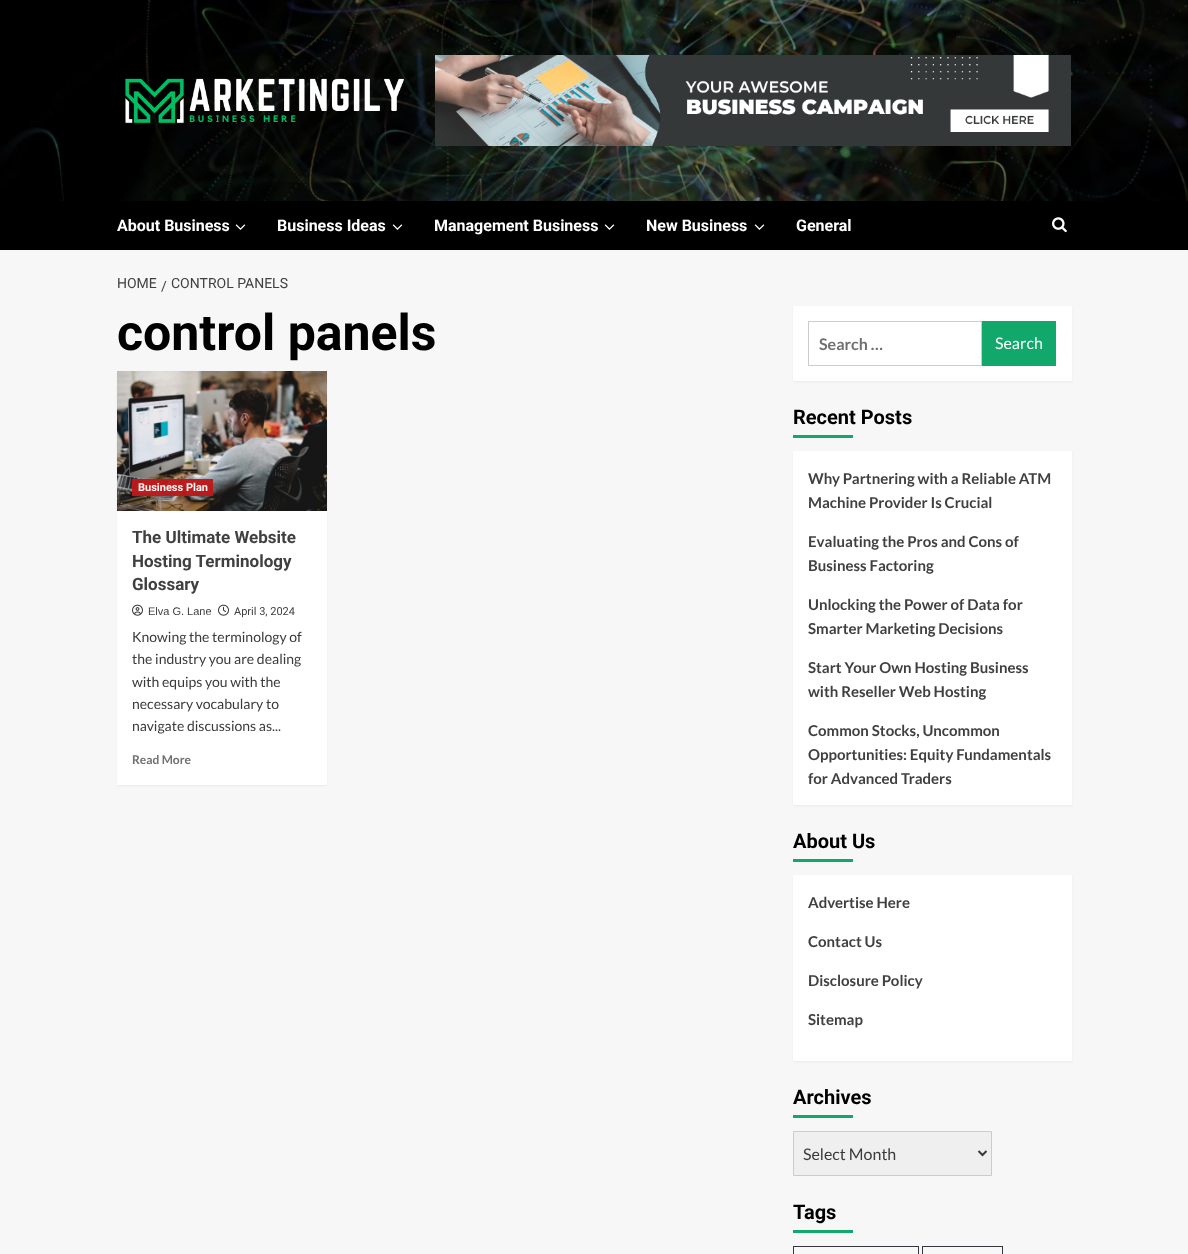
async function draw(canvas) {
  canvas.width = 1188;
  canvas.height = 1254;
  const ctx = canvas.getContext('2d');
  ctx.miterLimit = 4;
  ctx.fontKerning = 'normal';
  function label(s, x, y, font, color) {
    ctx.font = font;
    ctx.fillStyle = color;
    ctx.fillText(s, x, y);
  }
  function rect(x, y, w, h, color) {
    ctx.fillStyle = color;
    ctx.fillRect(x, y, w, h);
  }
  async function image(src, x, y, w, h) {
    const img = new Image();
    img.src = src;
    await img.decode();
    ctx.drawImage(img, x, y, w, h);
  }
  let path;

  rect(0, 0, 1188, 1254, '#f7f7f7');
  await image('assets/img1.png', 0, 0, 1188, 201);
  await image('assets/img2.png', 125, 78, 279, 46);
  await image('assets/img3.png', 435, 55, 636, 91);
  rect(0, 201, 1188, 49, '#000');
  label('About Business', 117, 231, 'bold 16px Roboto', '#fff');
  await image('assets/img4.png', 235, 224, 11, 6);
  label('Business Ideas', 277, 231, 'bold 16px Roboto', '#fff');
  await image('assets/img4.png', 392, 224, 11, 6);
  label('Management Business', 434, 231, 'bold 16px Roboto', '#fff');
  await image('assets/img4.png', 604, 224, 11, 6);
  label('New Business', 646, 231, 'bold 16px Roboto', '#fff');
  await image('assets/img4.png', 754, 224, 11, 6);
  label('General', 796, 231, 'bold 16px Roboto', '#fff');
  await image('assets/img5.png', 1052, 217, 15, 16);
  label('HOME', 117, 288, '14px Roboto', '#404040');
  label('/', 161, 291, '14px Roboto', '#404040');
  label('CONTROL PANELS', 171, 288, '14px Roboto', '#404040');
  label('control panels', 117, 350, 'bold 50px Roboto', '#000');
  ctx.fillStyle = '#0000000d';
  ctx.filter = 'blur(1px)';
  ctx.beginPath();
  ctx.rect(117, 372, 210, 414);
  ctx.fill();
  ctx.filter = 'none';
  rect(117, 511, 210, 274, '#fff');
  await image('assets/img6.png', 117, 371, 210, 140);
  rect(132, 479, 81, 17, '#bb1919f5');
  label('Business Plan', 138, 491, 'bold 11px Roboto', '#fcf6f6');
  label('The Ultimate Website', 132, 543, 'bold 17px Roboto', '#404040');
  label('Hosting Terminology', 132, 567, 'bold 17px Roboto', '#404040');
  label('Glossary', 132, 590, 'bold 17px Roboto', '#404040');
  await image('assets/img7.png', 132, 604, 11, 12);
  label('Elva G. Lane', 148, 615, '11px Liberation Sans', '#404040');
  await image('assets/img8.png', 218, 604, 11, 12);
  label('April 3, 2024', 234, 615, '11px Roboto', '#404040');
  label('Knowing the terminology of', 132, 642, '14px Lato', '#3a3a3a');
  label('the industry you are dealing', 132, 664, '14px Lato', '#3a3a3a');
  label('with equips you with the', 132, 687, '14px Lato', '#3a3a3a');
  label('necessary vocabulary to', 132, 709, '14px Lato', '#3a3a3a');
  label('navigate discussions as...', 132, 731, '14px Lato', '#3a3a3a');
  label('Read More', 132, 764, 'bold 12px Lato', '#707070');
  ctx.fillStyle = '#0000000d';
  ctx.filter = 'blur(1px)';
  ctx.beginPath();
  ctx.rect(793, 307, 279, 75);
  ctx.fill();
  ctx.filter = 'none';
  rect(793, 306, 279, 75, '#fff');
  ctx.strokeStyle = '#ccc';
  ctx.strokeRect(808.5, 321.5, 173, 44);
  label('Search …', 819, 350, 'bold 16px Lato', '#707070');
  rect(982, 321, 74, 45, '#12a86b');
  label('Search', 995, 349, '16px Lato', '#fff');
  label('Recent Posts', 793, 424, 'bold 20px Roboto', '#000');
  rect(793, 435, 60, 3, '#12a86b');
  ctx.fillStyle = '#0000000d';
  ctx.filter = 'blur(1px)';
  ctx.beginPath();
  ctx.rect(793, 452, 279, 354);
  ctx.fill();
  ctx.filter = 'none';
  rect(793, 451, 279, 354, '#fff');
  label('Why Partnering with a Reliable ATM', 808, 484, 'bold 15px Lato', '#404040');
  label('Machine Provider Is Crucial', 808, 508, 'bold 15px Lato', '#404040');
  label('Evaluating the Pros and Cons of', 808, 547, 'bold 15px Lato', '#404040');
  label('Business Factoring', 808, 571, 'bold 15px Lato', '#404040');
  label('Unlocking the Power of Data for', 808, 610, 'bold 15px Lato', '#404040');
  label('Smarter Marketing Decisions', 808, 634, 'bold 15px Lato', '#404040');
  label('Start Your Own Hosting Business', 808, 673, 'bold 15px Lato', '#404040');
  label('with Reseller Web Hosting', 808, 697, 'bold 15px Lato', '#404040');
  label('Common Stocks, Uncommon', 808, 736, 'bold 15px Lato', '#404040');
  label('Opportunities: Equity Fundamentals', 808, 760, 'bold 15px Lato', '#404040');
  label('for Advanced Traders', 808, 784, 'bold 15px Lato', '#404040');
  label('About Us', 793, 848, 'bold 20px Roboto', '#000');
  rect(793, 859, 60, 3, '#12a86b');
  ctx.fillStyle = '#0000000d';
  ctx.filter = 'blur(1px)';
  ctx.beginPath();
  ctx.rect(793, 876, 279, 186);
  ctx.fill();
  ctx.filter = 'none';
  rect(793, 875, 279, 186, '#fff');
  label('Advertise Here', 808, 908, 'bold 15px Lato', '#404040');
  label('Contact Us', 808, 947, 'bold 15px Lato', '#404040');
  label('Disclosure Policy', 808, 986, 'bold 15px Lato', '#404040');
  label('Sitemap', 808, 1025, 'bold 15px Lato', '#404040');
  label('Archives', 793, 1104, 'bold 20px Roboto', '#000');
  rect(793, 1115, 60, 3, '#12a86b');
  ctx.fillStyle = '#efefef';
  ctx.beginPath();
  ctx.rect(793.5, 1131.5, 198, 44);
  ctx.fill();
  ctx.stroke();
  path = new Path2D('M978.5 1151L982.5 1155L986.5 1151');
  ctx.strokeStyle = '#3a3a3a';
  ctx.lineWidth = 2;
  ctx.stroke(path);
  label('Select Month', 803, 1160, '16px Lato', '#3a3a3a');
  label('Tags', 793, 1219, 'bold 20px Roboto', '#000');
  rect(793, 1230, 60, 3, '#12a86b');
  ctx.strokeStyle = '#35373c';
  ctx.lineWidth = 1;
  ctx.strokeRect(793.5, 1246.5, 125, 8);
  ctx.strokeRect(922.5, 1246.5, 80, 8);
}

draw(document.querySelector('canvas'));
